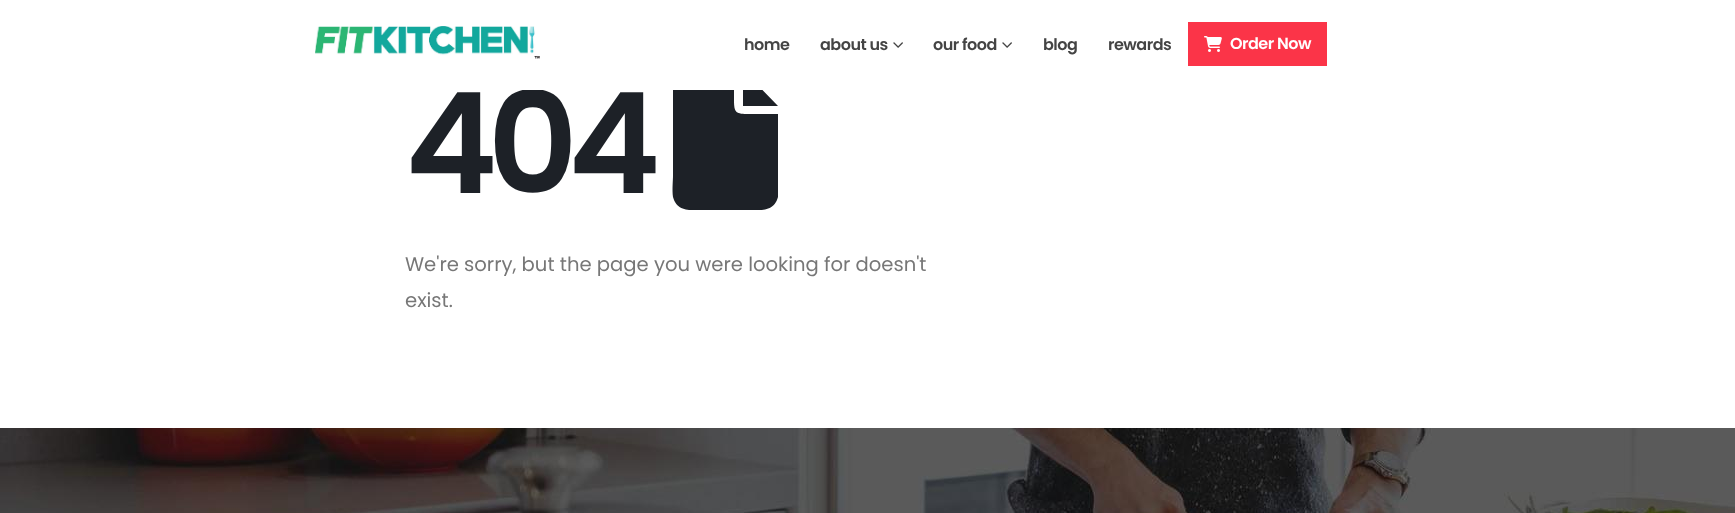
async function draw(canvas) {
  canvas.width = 1735;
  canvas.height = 513;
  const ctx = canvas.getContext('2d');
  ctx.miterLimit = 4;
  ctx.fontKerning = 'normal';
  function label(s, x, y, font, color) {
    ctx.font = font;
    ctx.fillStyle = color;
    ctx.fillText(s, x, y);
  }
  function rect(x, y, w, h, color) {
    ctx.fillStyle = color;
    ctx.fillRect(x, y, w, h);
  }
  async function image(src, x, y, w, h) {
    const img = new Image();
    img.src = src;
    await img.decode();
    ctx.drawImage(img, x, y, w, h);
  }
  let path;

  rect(0, 0, 1735, 513, '#fff');
  ctx.letterSpacing = '-10px';
  label('404', 405, 193, '600 140px Poppins', '#1d2127');
  path = new Path2D('M673 88C673 80 679 73 687 71L734 70V100C734 113 736 114 749 114H778V197C774 212 761 210 749 210H702C690 210 677 212 673 197C672 190 673 180 673 176ZM778 106H743V70Z');
  ctx.fill(path);
  rect(522, 70, 241, 20, '#fff');
  await image('assets/img1.png', 315, 26, 225, 33);
  ctx.letterSpacing = '-0.5px';
  label('home', 744, 50, '600 16px Poppins', '#444');
  label('about us', 820, 50, '600 16px Poppins', '#444');
  await image('assets/img2.png', 893, 42, 10, 6);
  label('our food', 933, 50, '600 16px Poppins', '#444');
  await image('assets/img2.png', 1002, 42, 10, 6);
  label('blog', 1043, 50, '600 16px Poppins', '#444');
  label('rewards', 1108, 50, '600 16px Poppins', '#444');
  rect(1188, 22, 139, 44, '#fb3448');
  await image('assets/img3.png', 1204, 36, 18, 16);
  label('Order Now', 1230, 49, '600 16px Poppins', '#fff');
  ctx.letterSpacing = '0px';
  label('We\'re sorry, but the page you were looking for doesn\'t', 405, 271, '19.6px Poppins', '#777');
  label('exist.', 405, 307, '19.6px Poppins', '#777');
  await image('assets/img4.png', 0, 428, 1735, 85);
}

draw(document.querySelector('canvas'));
